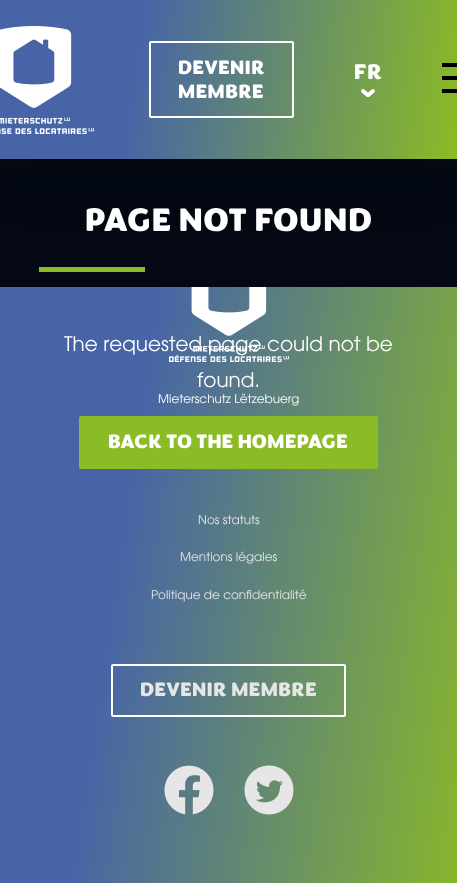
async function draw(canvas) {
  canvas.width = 457;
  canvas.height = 883;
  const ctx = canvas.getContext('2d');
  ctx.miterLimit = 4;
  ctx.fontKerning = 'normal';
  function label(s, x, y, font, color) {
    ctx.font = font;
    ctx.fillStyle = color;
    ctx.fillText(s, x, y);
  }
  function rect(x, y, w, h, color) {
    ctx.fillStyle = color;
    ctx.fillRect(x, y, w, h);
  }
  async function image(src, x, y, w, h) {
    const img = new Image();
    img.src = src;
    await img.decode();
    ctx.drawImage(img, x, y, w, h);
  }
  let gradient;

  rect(0, 0, 457, 883, '#fff');
  rect(0, 159, 457, 128, '#030812');
  ctx.fillStyle = '#03081233';
  ctx.filter = 'blur(25px)';
  ctx.beginPath();
  ctx.rect(0, 15, 457, 159);
  ctx.fill();
  ctx.filter = 'none';
  gradient = ctx.createLinearGradient(-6.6, 44, 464, 115);
  gradient.addColorStop(0.3, '#4765a6');
  gradient.addColorStop(1, '#8bbb25');
  ctx.fillStyle = gradient;
  ctx.fillRect(0, 0, 457, 159);
  await image('assets/img1.png', 0, 26, 94, 108);
  ctx.beginPath();
  ctx.roundRect(150, 42, 143, 75, 1);
  ctx.strokeStyle = '#fff';
  ctx.lineWidth = 2;
  ctx.stroke();
  ctx.letterSpacing = '0.6px';
  label('DEVENIR', 178, 74, '900 20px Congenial', '#fff');
  label('MEMBRE', 178, 98, '900 20px Congenial', '#fff');
  ctx.letterSpacing = '1px';
  label('FR', 354, 79, '900 22px Congenial', '#fff');
  await image('assets/img2.png', 361, 89, 14, 8);
  rect(442, 76, 15, 4, '#000');
  rect(442, 63, 15, 4, '#000');
  rect(442, 89, 15, 4, '#000');
  label('PAGE NOT FOUND', 85, 231, '900 33.75px Congenial', '#fff');
  rect(39, 267, 106, 5, '#8bbb25');
  gradient = ctx.createLinearGradient(-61, 564, 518, 651);
  gradient.addColorStop(0.3, '#4765a6');
  gradient.addColorStop(1, '#8bbb25');
  ctx.fillStyle = gradient;
  ctx.fillRect(0, 287, 457, 596);
  await image('assets/img3.png', 169, 287, 120, 75);
  ctx.letterSpacing = '0px';
  label('The requested page could not be', 64, 351, '300 20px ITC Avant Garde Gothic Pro', '#fff');
  label('found.', 197, 387, '300 20px ITC Avant Garde Gothic Pro', '#fff');
  ctx.fillStyle = '#8bbb25';
  ctx.beginPath();
  ctx.roundRect(80, 417, 297, 51, 1);
  ctx.fill();
  ctx.strokeStyle = '#8bbb25';
  ctx.stroke();
  ctx.letterSpacing = '0.6px';
  label('BACK TO THE HOMEPAGE', 108, 448, '900 20px Congenial', '#fff');
  ctx.letterSpacing = '0px';
  label('Mieterschutz Lëtzebuerg', 158, 403, '300 12px ITC Avant Garde Gothic Pro', '#fff');
  label('Nos statuts', 198, 524, '300 12px ITC Avant Garde Gothic Pro', '#e6e6e6');
  label('Mentions légales', 180, 561, '300 12px ITC Avant Garde Gothic Pro', '#e6e6e6');
  label('Politique de confidentialité', 151, 599, '300 12px ITC Avant Garde Gothic Pro', '#e6e6e6');
  ctx.beginPath();
  ctx.roundRect(112, 665, 233, 51, 1);
  ctx.strokeStyle = '#fff';
  ctx.stroke();
  ctx.letterSpacing = '0.6px';
  label('DEVENIR MEMBRE', 140, 696, '900 20px Congenial', '#e6e6e6');
  await image('assets/img4.png', 164, 765, 50, 50);
  await image('assets/img5.png', 244, 765, 50, 50);
}

draw(document.querySelector('canvas'));
